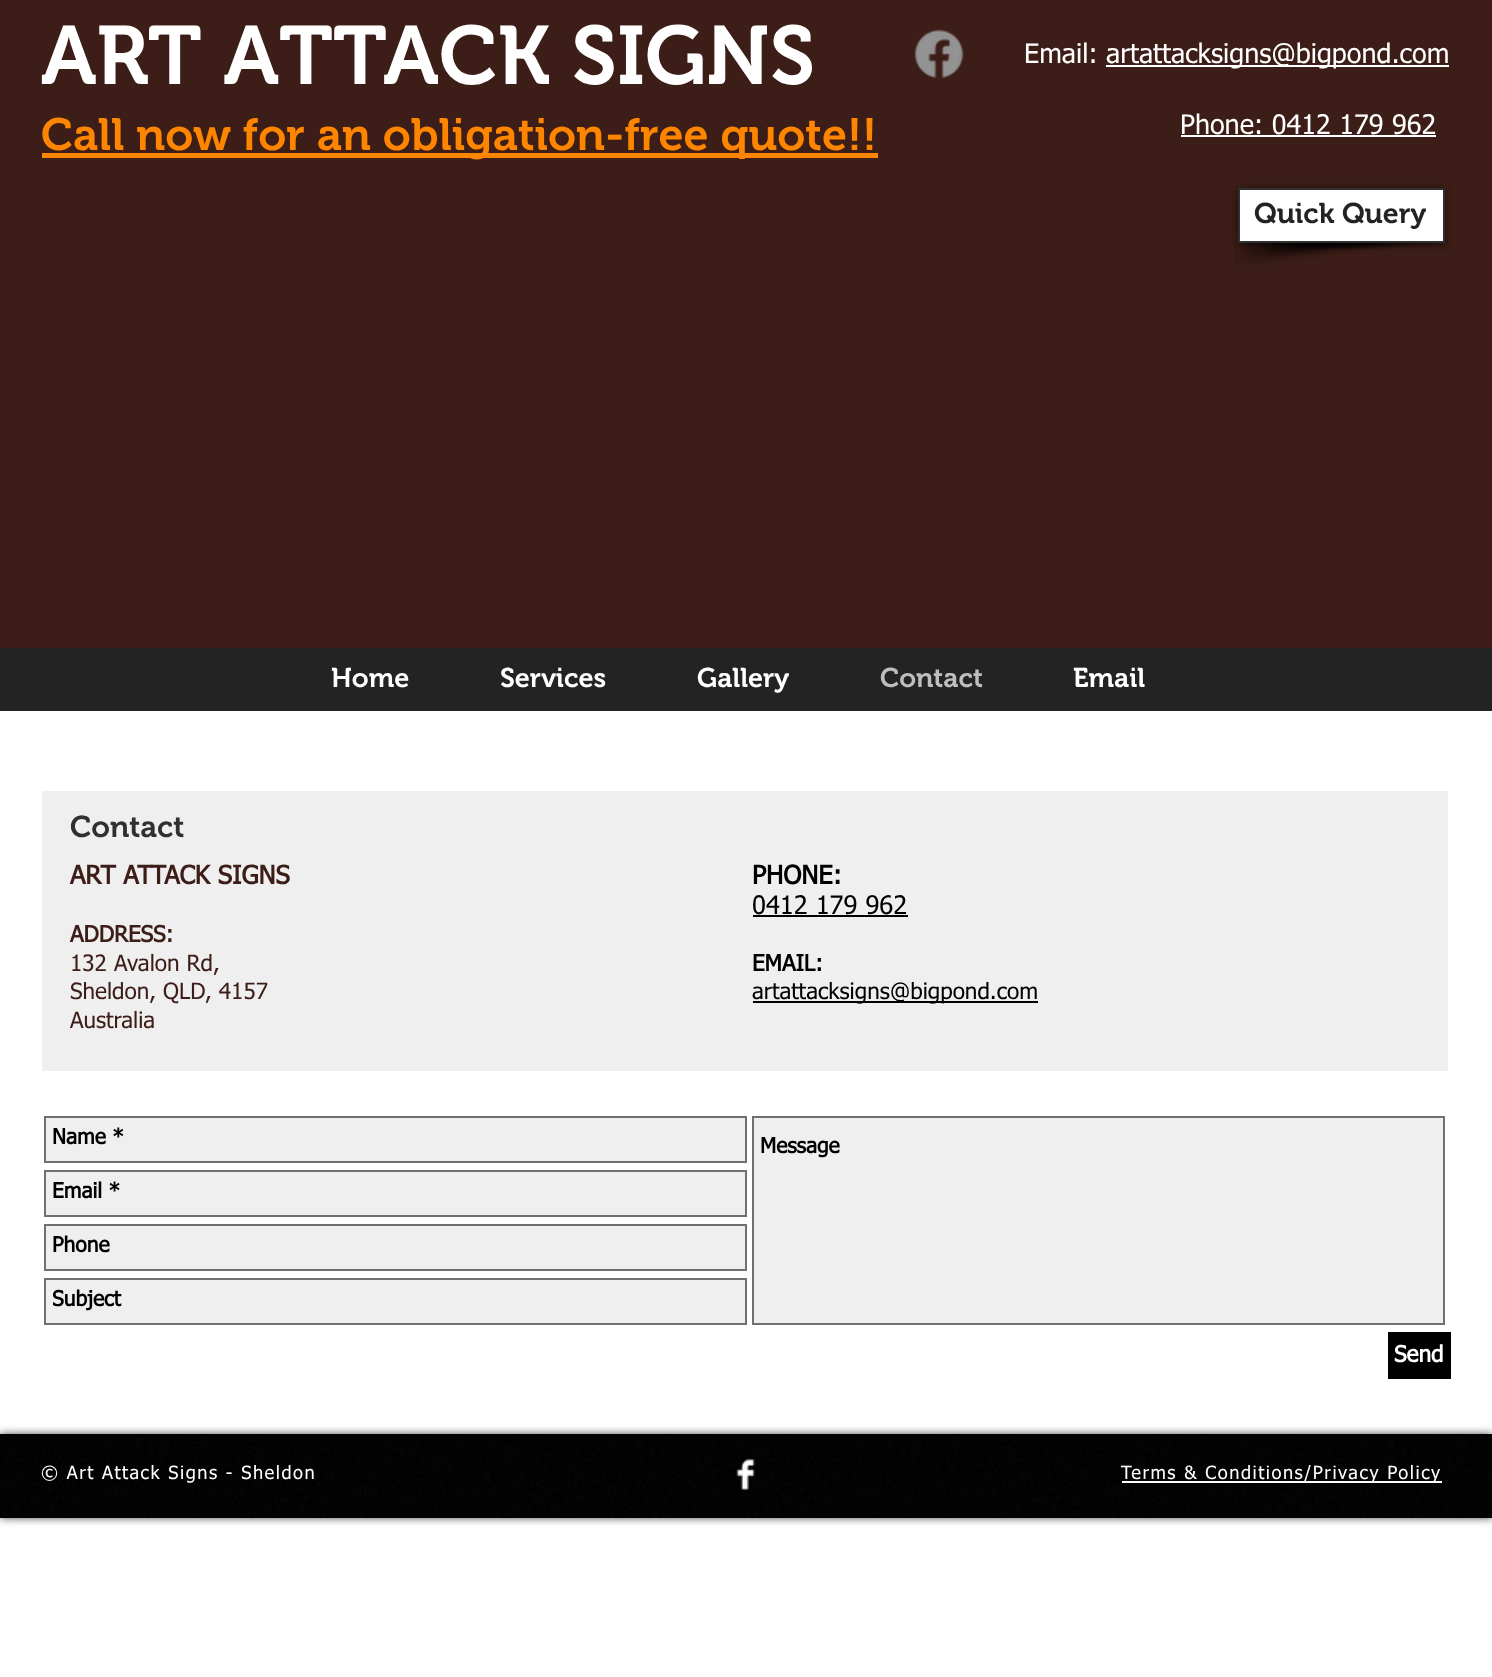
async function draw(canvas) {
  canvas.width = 1492;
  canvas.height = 1677;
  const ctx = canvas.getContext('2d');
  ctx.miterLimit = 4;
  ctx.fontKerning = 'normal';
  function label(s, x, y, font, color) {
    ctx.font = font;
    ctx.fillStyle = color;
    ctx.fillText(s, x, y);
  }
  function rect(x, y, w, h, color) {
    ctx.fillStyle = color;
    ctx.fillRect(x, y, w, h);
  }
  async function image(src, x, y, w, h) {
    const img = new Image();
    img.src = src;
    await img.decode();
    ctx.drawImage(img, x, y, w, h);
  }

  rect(0, 0, 1492, 1677, '#fff');
  rect(0, 0, 1492, 648, '#3c1d17');
  label('ART ATTACK SIGNS', 41, 84, '600 82.5px "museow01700"', '#fff');
  await image('assets/img1.png', 914, 29, 50, 50);
  label('Email:', 1024, 63, '27px tahoma', '#fff');
  rect(1106, 65, 343, 2, '#fff');
  label('artattacksigns@bigpond.com', 1106, 63, '27px tahoma', '#fff');
  rect(42, 153, 836, 5, '#fe8500');
  label('Call now for an obligation-free quote!!', 41, 150, '600 45px "museow01700"', '#fe8500');
  label('Phone: 0412 179 962', 1180, 134, '27px tahoma', '#fff');
  rect(1181, 135, 255, 2, '#fff');
  await image('assets/img2.png', 1234, 243, 196, 22);
  ctx.fillStyle = '#00000099';
  ctx.filter = 'blur(3px)';
  ctx.beginPath();
  ctx.rect(1238, 189, 207, 56);
  ctx.fill();
  ctx.filter = 'none';
  ctx.fillStyle = '#fff';
  ctx.beginPath();
  ctx.rect(1239, 189, 205, 53);
  ctx.fill();
  ctx.strokeStyle = '#303030';
  ctx.lineWidth = 2;
  ctx.stroke();
  label('Quick Query', 1254, 223, '600 28.5px "museow01700"', '#232323');
  rect(0, 648, 1492, 63, '#242323');
  label('Home', 331, 687, '600 27px "museow01700"', '#fff');
  label('Services', 500, 687, '600 27px "museow01700"', '#fff');
  label('Gallery', 697, 687, '600 27px "museow01700"', '#fff');
  label('Contact', 880, 687, '600 27px "museow01700"', '#bfbebe');
  label('Email', 1073, 687, '600 27px "museow01700"', '#fff');
  rect(42, 791, 1406, 280, '#efefef');
  label('Contact', 70, 837, '600 30px "museow01700"', '#303030');
  label('ART ATTACK SIGNS', 70, 884, 'bold 25.5px tahoma', '#3c1d17');
  label('ADDRESS:', 70, 942, 'bold 22.5px tahoma', '#3c1d17');
  label('132 Avalon Rd,', 70, 971, '22.5px tahoma', '#3c1d17');
  label('Sheldon, QLD, 4157', 70, 999, '22.5px tahoma', '#3c1d17');
  label('Australia', 70, 1028, '22.5px tahoma', '#3c1d17');
  label('PHONE:', 752, 884, 'bold 25.5px tahoma', '#000');
  label('0412 179 962', 752, 914, '25.5px tahoma', '#000');
  rect(753, 915, 155, 2, '#000');
  label('EMAIL:', 752, 971, 'bold 22.5px tahoma', '#000');
  rect(753, 1001, 285, 2, '#000');
  label('artattacksigns@bigpond.com', 752, 999, '22.5px tahoma', '#000');
  ctx.fillStyle = '#efefef';
  ctx.beginPath();
  ctx.rect(45, 1117, 701, 45);
  ctx.fill();
  ctx.strokeStyle = '#717070';
  ctx.stroke();
  label('Name *', 52, 1144, 'bold 21px tahoma', '#000');
  ctx.fillStyle = '#efefef';
  ctx.beginPath();
  ctx.rect(753, 1117, 691, 207);
  ctx.fill();
  ctx.stroke();
  label('Message', 760, 1153, 'bold 21px tahoma', '#000');
  ctx.fillStyle = '#efefef';
  ctx.beginPath();
  ctx.rect(45, 1171, 701, 45);
  ctx.fill();
  ctx.stroke();
  label('Email *', 52, 1198, 'bold 21px tahoma', '#000');
  ctx.fillStyle = '#efefef';
  ctx.beginPath();
  ctx.rect(45, 1225, 701, 45);
  ctx.fill();
  ctx.stroke();
  label('Phone', 52, 1252, 'bold 21px tahoma', '#000');
  ctx.fillStyle = '#efefef';
  ctx.beginPath();
  ctx.rect(45, 1279, 701, 45);
  ctx.fill();
  ctx.stroke();
  ctx.save();
  ctx.beginPath();
  ctx.rect(53, 1289, 688, 25);
  ctx.clip();
  label('Subject', 52, 1306, 'bold 21px tahoma', '#000');
  ctx.restore();
  rect(1388, 1332, 63, 47, '#000');
  label('Send', 1394, 1362, 'bold 22.5px tahoma', '#fff');
  ctx.fillStyle = '#000000b3';
  ctx.filter = 'blur(4px)';
  ctx.beginPath();
  ctx.rect(0, 1434, 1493, 84);
  ctx.fill();
  ctx.filter = 'none';
  rect(0, 1434, 1492, 84, '#000');
  await image('assets/img3.png', 0, 1434, 1492, 84);
  ctx.letterSpacing = '1.5px';
  label('© Art Attack Signs - Sheldon', 41, 1479, '18.3px tahoma', '#fff');
  await image('assets/img4.png', 736, 1459, 19, 31);
  rect(1122, 1481, 320, 2, '#fff');
  label('Terms & Conditions/Privacy Policy', 1121, 1479, '18.3px tahoma', '#fff');
}

draw(document.querySelector('canvas'));
